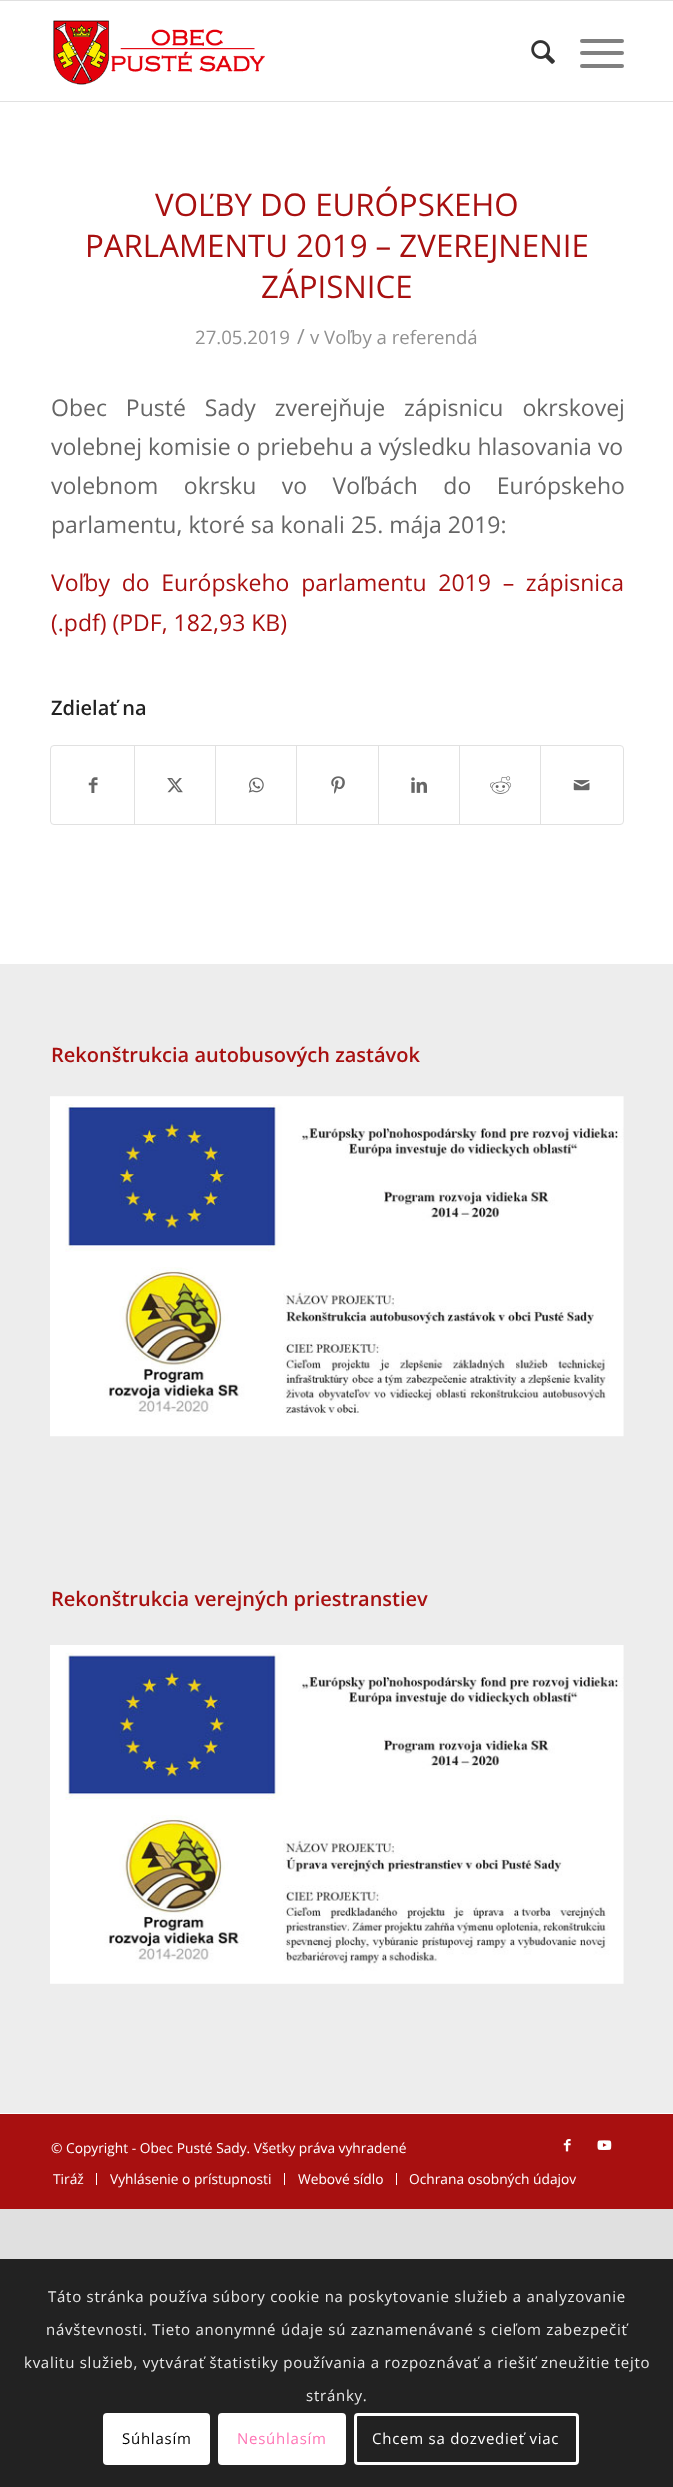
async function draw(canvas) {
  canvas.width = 673;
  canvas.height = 2487;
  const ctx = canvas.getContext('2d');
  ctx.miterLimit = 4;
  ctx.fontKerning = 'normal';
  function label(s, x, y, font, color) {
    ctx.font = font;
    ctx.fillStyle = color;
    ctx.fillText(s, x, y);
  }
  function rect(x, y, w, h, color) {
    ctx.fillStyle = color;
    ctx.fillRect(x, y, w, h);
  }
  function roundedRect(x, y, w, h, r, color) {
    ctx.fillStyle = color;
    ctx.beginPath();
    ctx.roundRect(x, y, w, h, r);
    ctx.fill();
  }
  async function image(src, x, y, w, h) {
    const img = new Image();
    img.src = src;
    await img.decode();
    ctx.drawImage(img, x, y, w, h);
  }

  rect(0, 0, 673, 2487, '#e0e0e0');
  rect(0, 1, 673, 963, '#fff');
  rect(0, 101, 673, 1, '#e1e1e1');
  await image('assets/img1.png', 53, 20, 212, 65);
  await image('assets/img2.png', 531, 40, 24, 24);
  roundedRect(580, 51, 44, 4, 2, '#808080');
  roundedRect(580, 39, 44, 4, 2, '#808080');
  roundedRect(580, 64, 44, 4, 2, '#808080');
  label('VOĽBY DO EURÓPSKEHO', 155, 216, '31.25px Open Sans', '#a81010');
  label('PARLAMENTU 2019 – ZVEREJNENIE', 85, 257, '31.25px Open Sans', '#a81010');
  label('ZÁPISNICE', 261, 298, '31.25px Open Sans', '#a81010');
  label('27.05.2019', 195, 344, '18.6px Open Sans', '#919191');
  label('/', 297, 344, '21px Open Sans', '#919191');
  label('v Voľby a referendá', 310, 344, '18.6px Open Sans', '#919191');
  ctx.wordSpacing = '13px';
  label('Obec Pusté Sady zverejňuje zápisnicu okrskovej', 51, 416, '23px Open Sans', '#666');
  ctx.wordSpacing = '0px';
  label('volebnej komisie o priebehu a výsledku hlasovania vo', 51, 455, '23px Open Sans', '#666');
  ctx.wordSpacing = '19.5px';
  label('volebnom okrsku vo Voľbách do Európskeho', 51, 494, '23px Open Sans', '#666');
  ctx.wordSpacing = '0px';
  label('parlamentu, ktoré sa konali 25. mája 2019:', 51, 533, '23px Open Sans', '#666');
  ctx.wordSpacing = '5.75px';
  label('Voľby do Európskeho parlamentu 2019 – zápisnica', 51, 591, '23px Open Sans', '#a81010');
  ctx.wordSpacing = '0px';
  label('(.pdf) (PDF, 182,93 KB)', 51, 631, '23px Open Sans', '#a81010');
  label('Zdielať na', 51, 715, '600 20px Open Sans', '#222');
  ctx.beginPath();
  ctx.roundRect(50.5, 745.5, 573, 79, 3.5);
  ctx.strokeStyle = '#e1e1e1';
  ctx.stroke();
  await image('assets/img3.png', 88, 777, 10, 16);
  rect(134, 746, 1, 78, '#e1e1e1');
  await image('assets/img4.png', 167, 778, 16, 15);
  rect(215, 746, 1, 78, '#e1e1e1');
  await image('assets/img5.png', 248, 777, 16, 16);
  rect(296, 746, 1, 78, '#e1e1e1');
  await image('assets/img6.png', 331, 776, 14, 18);
  rect(378, 746, 1, 78, '#e1e1e1');
  await image('assets/img7.png', 411, 777, 16, 16);
  rect(459, 746, 1, 78, '#e1e1e1');
  await image('assets/img8.png', 490, 776, 22, 18);
  rect(540, 746, 1, 78, '#e1e1e1');
  await image('assets/img9.png', 573, 780, 17, 11);
  rect(0, 964, 673, 1149, '#ededed');
  label('Rekonštrukcia autobusových zastávok', 51, 1062, '600 20px Open Sans', '#a81010');
  await image('assets/img10.png', 50, 1096, 574, 341);
  label('Rekonštrukcia verejných priestranstiev', 51, 1606, '600 20px Open Sans', '#a81010');
  await image('assets/img11.png', 50, 1645, 574, 339);
  rect(0, 2114, 673, 95, '#a81010');
  rect(0, 2113, 673, 1, '#fff');
  label('© Copyright - Obec Pusté Sady. Všetky práva vyhradené', 51, 2153, '13.75px Open Sans', '#fff');
  await image('assets/img12.png', 563, 2139, 8, 13);
  await image('assets/img13.png', 597, 2140, 15, 10);
  label('Tiráž', 53, 2184, '13.75px Open Sans', '#fff');
  rect(96, 2173, 1, 12, '#fff');
  label('Vyhlásenie o prístupnosti', 110, 2184, '13.75px Open Sans', '#fff');
  rect(284, 2173, 1, 12, '#fff');
  label('Webové sídlo', 298, 2184, '13.75px Open Sans', '#fff');
  rect(396, 2173, 1, 12, '#fff');
  label('Ochrana osobných údajov', 409, 2184, '13.75px Open Sans', '#fff');
  rect(0, 2259, 673, 228, '#222');
  ctx.letterSpacing = '0.75px';
  label('Táto stránka používa súbory cookie na poskytovanie služieb a analyzovanie', 48, 2302, '15px Open Sans', '#e9e9e9');
  label('návštevnosti. Tieto anonymné údaje sú zaznamenávané s cieľom zabezpečiť', 46, 2335, '15px Open Sans', '#e9e9e9');
  label('kvalitu služieb, vytvárať štatistiky používania a rozpoznávať a riešiť zneužitie tejto', 24, 2368, '15px Open Sans', '#e9e9e9');
  label('stránky.', 306, 2401, '15px Open Sans', '#e9e9e9');
  roundedRect(103, 2413, 107, 52, 4, '#fff');
  label('Súhlasím', 122, 2444, '15px Open Sans', '#000');
  ctx.fillStyle = '#fff';
  ctx.beginPath();
  ctx.roundRect(219.5, 2414.5, 125, 49, 2.5);
  ctx.fill();
  ctx.strokeStyle = '#fff';
  ctx.lineWidth = 3;
  ctx.stroke();
  label('Nesúhlasím', 237, 2444, '15px Open Sans', '#ff75b5');
  ctx.beginPath();
  ctx.roundRect(355.5, 2414.5, 222, 49, 2.5);
  ctx.stroke();
  label('Chcem sa dozvedieť viac', 372, 2444, '15px Open Sans', '#fff');
}

draw(document.querySelector('canvas'));
